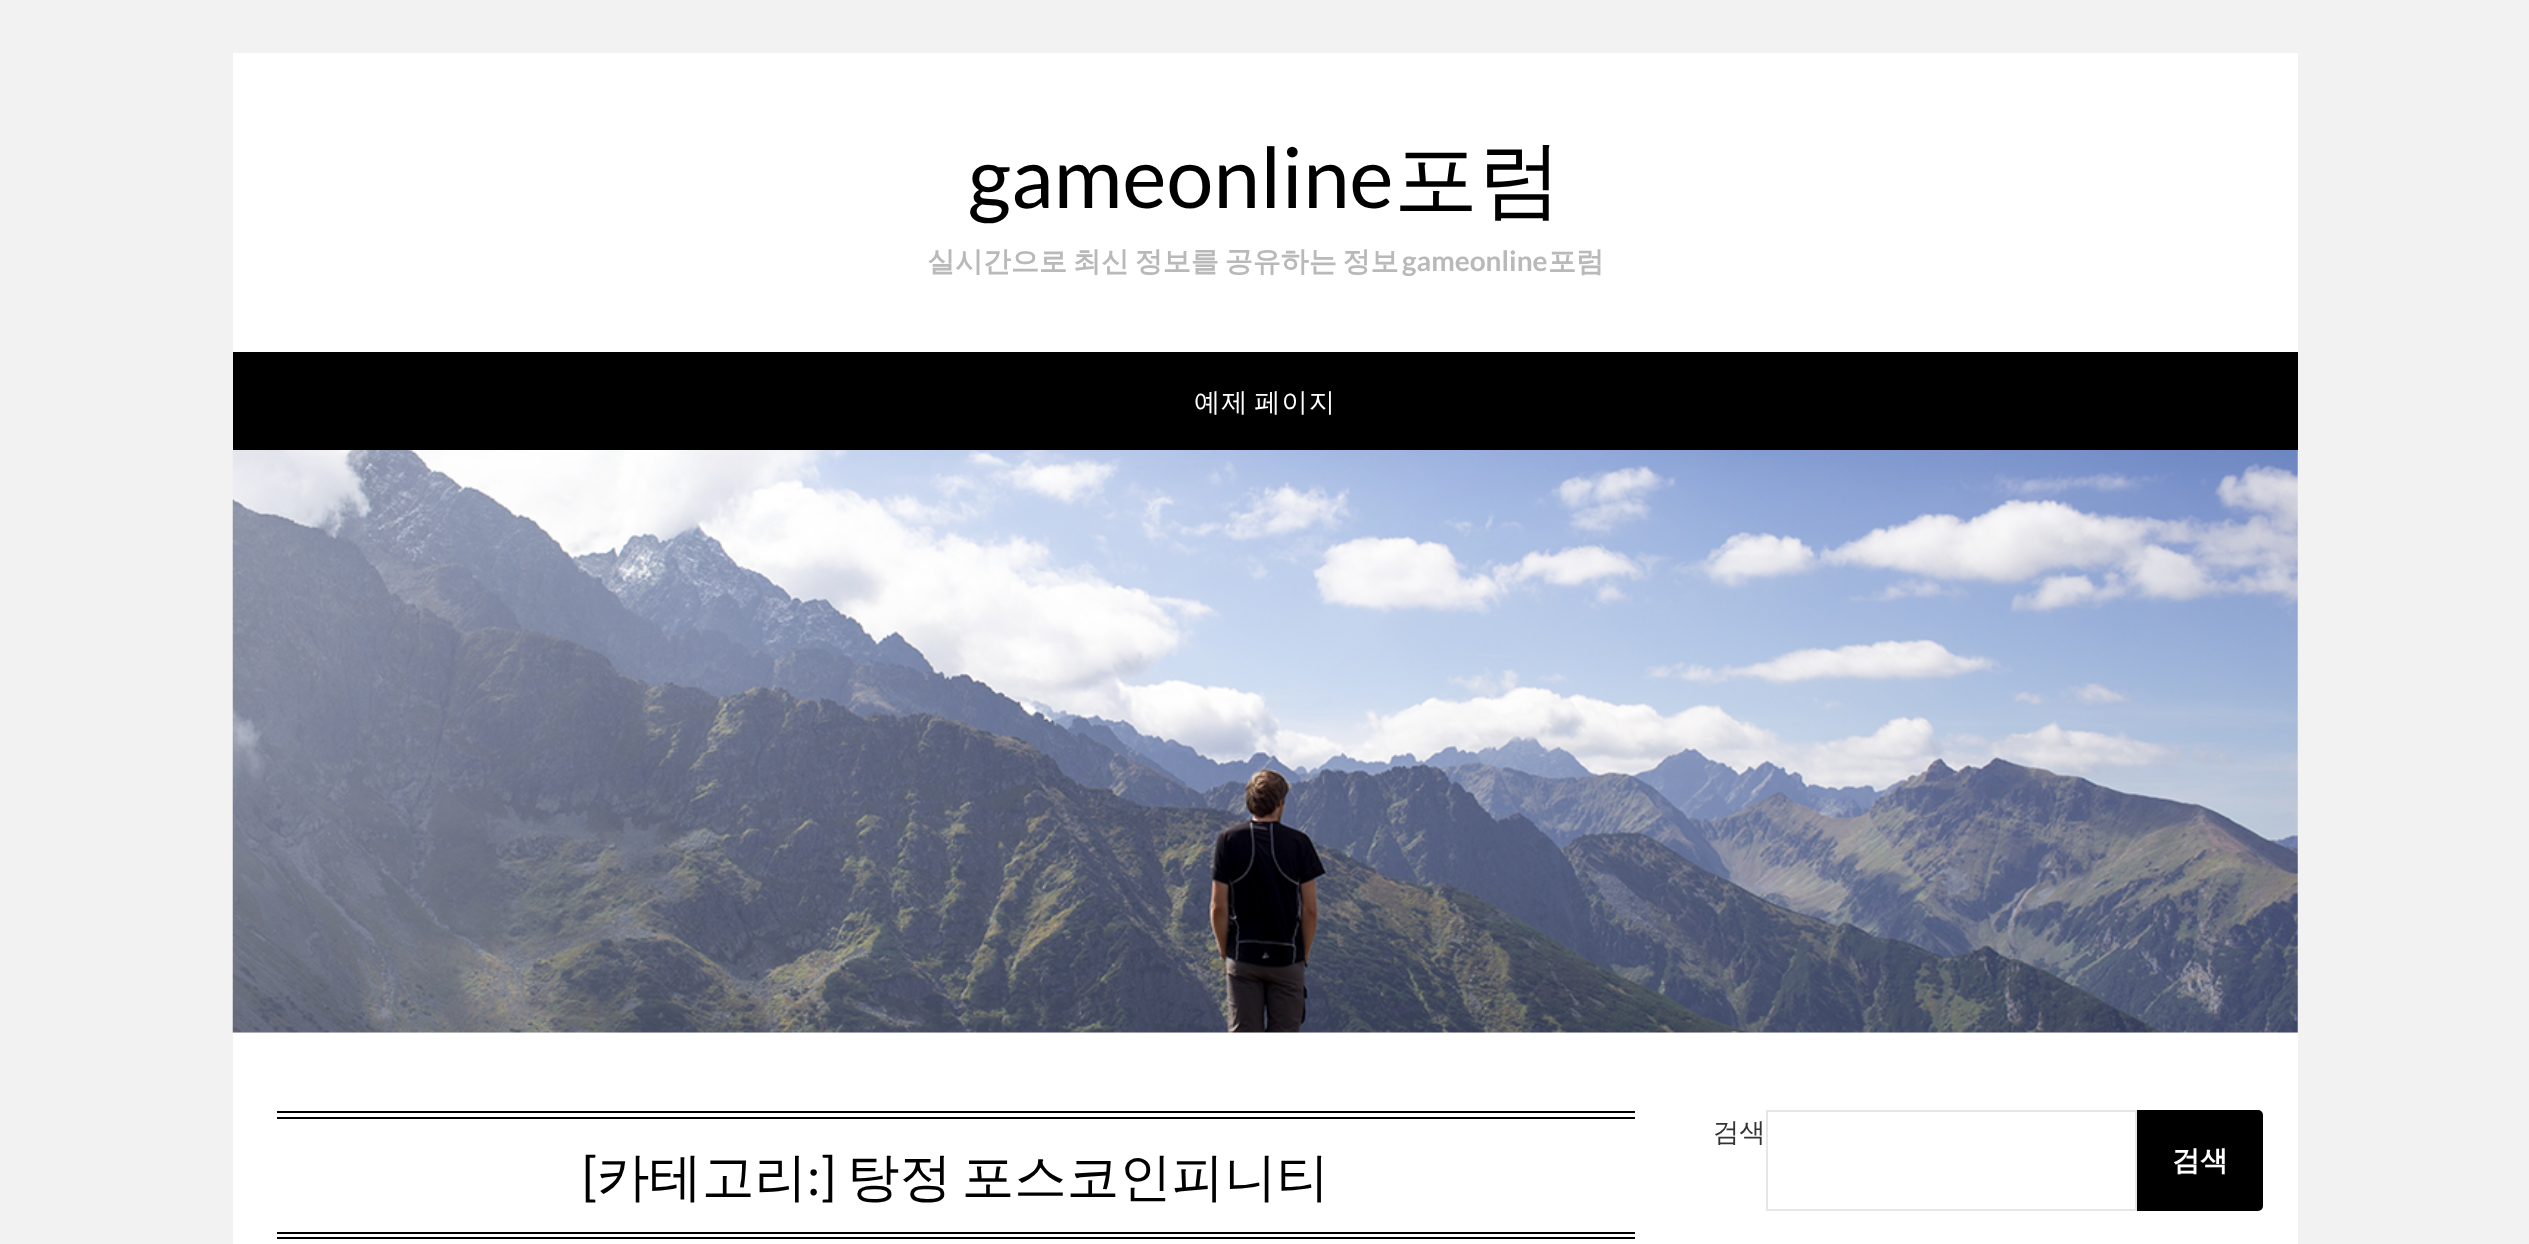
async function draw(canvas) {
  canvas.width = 2529;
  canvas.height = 1244;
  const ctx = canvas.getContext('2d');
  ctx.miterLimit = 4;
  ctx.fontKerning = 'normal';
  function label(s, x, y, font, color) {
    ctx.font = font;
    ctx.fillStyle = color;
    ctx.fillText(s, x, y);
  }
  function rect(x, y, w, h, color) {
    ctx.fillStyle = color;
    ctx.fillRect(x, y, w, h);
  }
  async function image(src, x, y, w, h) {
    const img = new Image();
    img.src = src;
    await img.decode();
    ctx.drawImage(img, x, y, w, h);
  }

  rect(0, 0, 2529, 1244, '#f2f2f2');
  rect(233, 53, 2065, 299, '#fff');
  label('gameonline', 968, 208, '84px Lato', '#000');
  label('포럼', 1394, 208, '500 84px WenQuanYi Zen Hei', '#000');
  ctx.wordSpacing = '-2.5px';
  label('실시간으로 최신 정보를 공유하는 정보', 927, 271, 'bold 28px WenQuanYi Zen Hei', '#b9b9b9');
  ctx.wordSpacing = '0px';
  label('gameonline', 1402, 271, 'bold 28px Lato', '#b9b9b9');
  label('포럼', 1548, 271, 'bold 28px WenQuanYi Zen Hei', '#b9b9b9');
  await image('assets/img1.png', 232, 449, 2066, 584);
  rect(233, 352, 2065, 98, '#000');
  ctx.letterSpacing = '1px';
  ctx.wordSpacing = '-3px';
  label('예제 페이지', 1194, 411, '500 26.25px WenQuanYi Zen Hei', '#fff');
  rect(233, 1033, 2065, 211, '#fff');
  rect(277, 1111, 1358, 2, '#000');
  rect(277, 1117, 1358, 2, '#000');
  rect(277, 1232, 1358, 2, '#000');
  rect(277, 1237, 1358, 2, '#000');
  ctx.letterSpacing = '0px';
  ctx.wordSpacing = '0px';
  label('[', 582, 1195, '52.5px Lato', '#000');
  label('카테고리', 597, 1195, '500 52.5px WenQuanYi Zen Hei', '#000');
  label(':]', 807, 1195, '52.5px Lato', '#000');
  ctx.wordSpacing = '-6px';
  label('탕정 포스코인피니티', 847, 1195, '500 52.5px WenQuanYi Zen Hei', '#000');
  ctx.wordSpacing = '0px';
  label('검색', 1713, 1141, '500 26.25px WenQuanYi Zen Hei', '#333');
  ctx.strokeStyle = '#e5e6e9';
  ctx.lineWidth = 2;
  ctx.strokeRect(1767, 1111, 369, 99);
  ctx.fillStyle = '#000';
  ctx.beginPath();
  ctx.roundRect(2137, 1110, 126, 101, [0, 5, 5, 0]);
  ctx.fill();
  label('검색', 2172, 1170, 'bold 28px WenQuanYi Zen Hei', '#fff');
}

draw(document.querySelector('canvas'));
